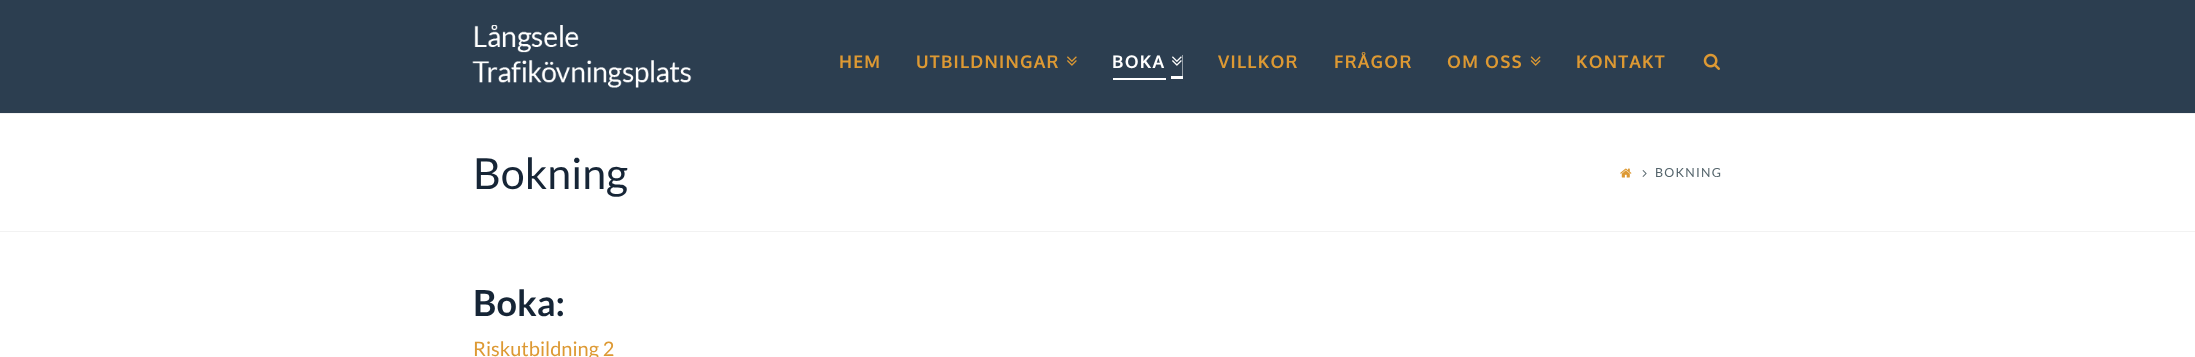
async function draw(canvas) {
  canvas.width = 2195;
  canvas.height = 357;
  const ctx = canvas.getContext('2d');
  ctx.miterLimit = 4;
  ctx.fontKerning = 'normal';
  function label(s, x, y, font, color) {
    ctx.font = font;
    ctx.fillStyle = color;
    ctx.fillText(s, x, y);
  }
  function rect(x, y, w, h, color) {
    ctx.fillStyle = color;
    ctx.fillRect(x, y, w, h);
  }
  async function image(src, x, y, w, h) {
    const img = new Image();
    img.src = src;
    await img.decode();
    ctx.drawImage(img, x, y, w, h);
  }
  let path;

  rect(0, 0, 2195, 357, '#fff');
  rect(0, 0, 2195, 113, '#2c3e50');
  await image('assets/img1.png', 472, 25, 220, 63);
  ctx.letterSpacing = '1.25px';
  label('HEM', 839, 68, 'bold 17.5px Oxygen', '#d93');
  label('UTBILDNINGAR', 916, 68, 'bold 17.5px Oxygen', '#d93');
  await image('assets/img2.png', 1067, 56, 10, 10);
  label('BOKA', 1112, 68, 'bold 17.5px Oxygen', '#fff');
  rect(1113, 78, 53, 2, '#fff');
  path = new Path2D('M1171 55V79H1183V55H1182.5V76H1171Z');
  ctx.fill(path);
  await image('assets/img3.png', 1172, 56, 10, 10);
  label('VILLKOR', 1218, 68, 'bold 17.5px Oxygen', '#d93');
  label('FRÅGOR', 1334, 68, 'bold 17.5px Oxygen', '#d93');
  label('OM OSS', 1447, 68, 'bold 17.5px Oxygen', '#d93');
  await image('assets/img4.png', 1530, 56, 11, 10);
  label('KONTAKT', 1576, 68, 'bold 17.5px Oxygen', '#d93');
  await image('assets/img5.png', 1703, 53, 17, 17);
  rect(0, 113, 2195, 1, '#f2f2f2');
  rect(0, 231, 2195, 1, '#f2f2f2');
  ctx.letterSpacing = '0px';
  label('Bokning', 473, 189, '43px Lato', '#162536');
  await image('assets/img6.png', 1620, 168, 12, 10);
  await image('assets/img7.png', 1642, 170, 5, 7);
  ctx.letterSpacing = '1.25px';
  label('BOKNING', 1655, 177, '12.5px Lato', '#54646b');
  ctx.letterSpacing = '0px';
  label('Boka:', 473, 316, 'bold 36px Lato', '#162536');
  label('Riskutbildning 2', 473, 356, '20px Lato', '#d93');
}

draw(document.querySelector('canvas'));
